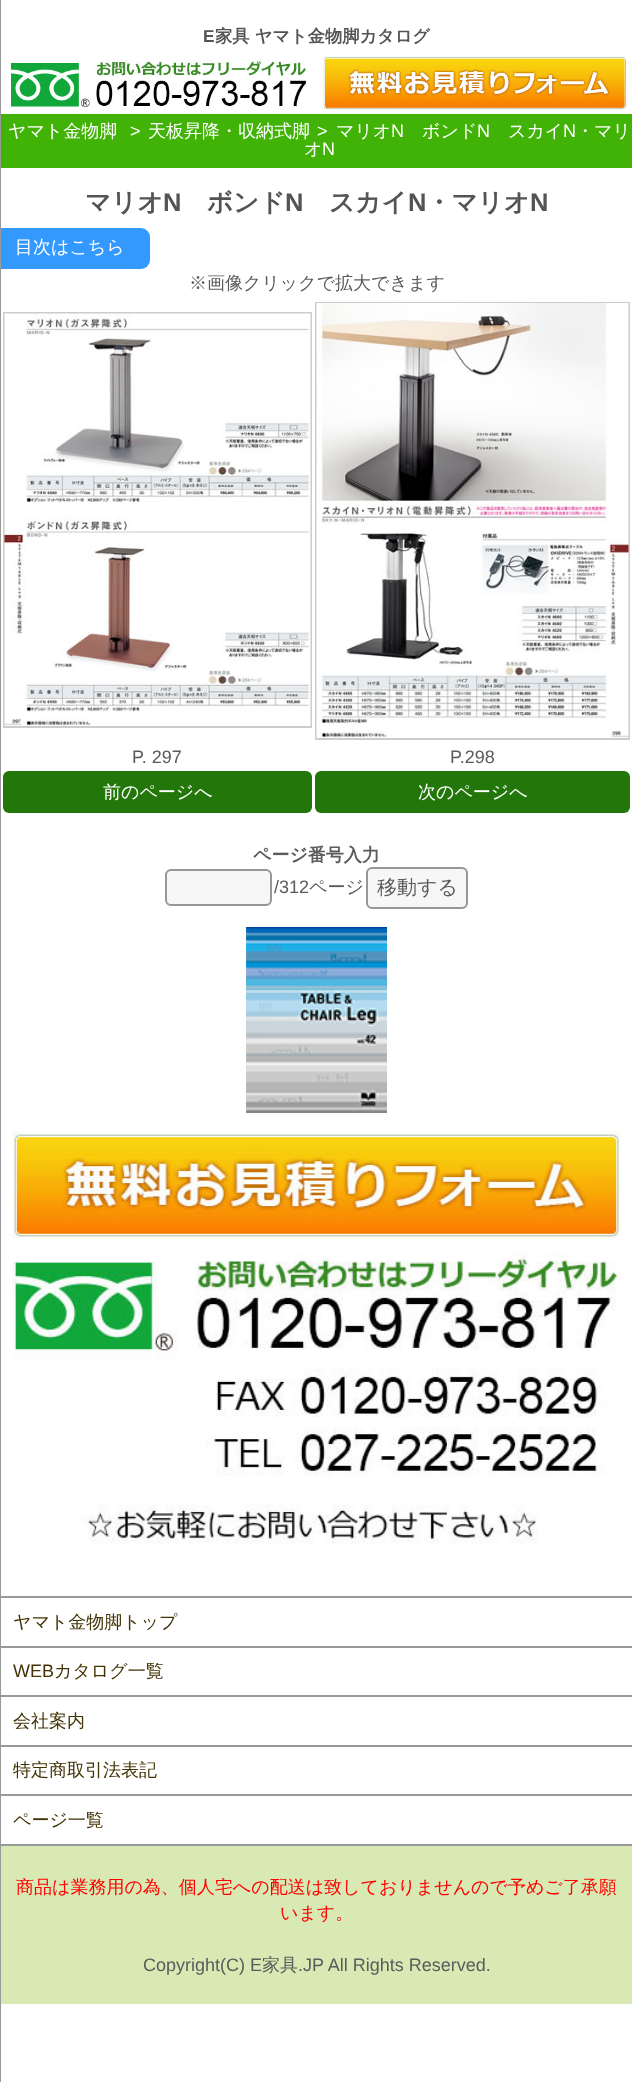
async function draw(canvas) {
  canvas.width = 632;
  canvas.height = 2082;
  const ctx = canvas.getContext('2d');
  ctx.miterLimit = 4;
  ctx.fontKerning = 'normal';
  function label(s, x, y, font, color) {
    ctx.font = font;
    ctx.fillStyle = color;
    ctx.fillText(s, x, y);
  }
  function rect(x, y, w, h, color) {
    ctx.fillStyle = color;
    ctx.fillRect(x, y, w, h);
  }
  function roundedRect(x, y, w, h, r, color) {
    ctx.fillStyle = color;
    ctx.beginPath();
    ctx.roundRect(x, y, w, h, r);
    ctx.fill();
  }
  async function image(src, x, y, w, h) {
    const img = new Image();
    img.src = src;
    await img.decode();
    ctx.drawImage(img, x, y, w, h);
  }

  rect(0, 0, 632, 2082, '#fff');
  label('E', 203, 42, 'bold 17.25px Liberation Sans', '#545454');
  label('家具 ヤマト金物脚カタログ', 215, 42, 'bold 17.25px WenQuanYi Zen Hei', '#545454');
  await image('assets/img1.png', 11, 60, 296, 48);
  await image('assets/img2.png', 322, 55, 304, 55);
  rect(1, 114, 631, 54, '#41b306');
  label('ヤマト金物脚', 8, 137, '500 18px WenQuanYi Zen Hei', '#fff');
  ctx.letterSpacing = '8px';
  label('>', 130, 137, '18px Liberation Sans', '#fff');
  ctx.letterSpacing = '0px';
  label('天板昇降・収納式脚', 148, 137, '500 18px WenQuanYi Zen Hei', '#fff');
  ctx.letterSpacing = '8px';
  label('>', 317, 137, '18px Liberation Sans', '#fff');
  ctx.letterSpacing = '0px';
  label('マリオ', 336, 137, '500 18px WenQuanYi Zen Hei', '#fff');
  label('N', 391, 137, '18px Liberation Sans', '#fff');
  label('ボンド', 422, 137, '500 18px WenQuanYi Zen Hei', '#fff');
  label('N', 477, 137, '18px Liberation Sans', '#fff');
  label('スカイ', 508, 137, '500 18px WenQuanYi Zen Hei', '#fff');
  label('N', 563, 137, '18px Liberation Sans', '#fff');
  label('・マリ', 576, 137, '500 18px WenQuanYi Zen Hei', '#fff');
  label('オ', 304, 155, '500 18px WenQuanYi Zen Hei', '#fff');
  label('N', 322, 155, '18px Liberation Sans', '#fff');
  label('マリオ', 85, 211, 'bold 25.5px WenQuanYi Zen Hei', '#545454');
  label('N', 163, 211, 'bold 25.5px Liberation Sans', '#545454');
  label('ボンド', 207, 211, 'bold 25.5px WenQuanYi Zen Hei', '#545454');
  label('N', 285, 211, 'bold 25.5px Liberation Sans', '#545454');
  label('スカイ', 329, 211, 'bold 25.5px WenQuanYi Zen Hei', '#545454');
  label('N', 408, 211, 'bold 25.5px Liberation Sans', '#545454');
  label('・マリオ', 426, 211, 'bold 25.5px WenQuanYi Zen Hei', '#545454');
  label('N', 530, 211, 'bold 25.5px Liberation Sans', '#545454');
  ctx.fillStyle = '#39f';
  ctx.beginPath();
  ctx.roundRect(0, 228, 150, 41, [0, 9, 9, 0]);
  ctx.fill();
  label('目次はこちら', 15, 253, '500 18px WenQuanYi Zen Hei', '#fff');
  label('※画像クリックで拡大できます', 189, 289, '500 18px WenQuanYi Zen Hei', '#5b5b5b');
  ctx.strokeStyle = '#ccc';
  ctx.lineWidth = 2;
  ctx.strokeRect(4, 313, 307, 414);
  await image('assets/img3.png', 4, 313, 307, 413);
  ctx.strokeRect(316, 303, 313, 436);
  await image('assets/img4.png', 316, 303, 313, 435);
  label('P. 297', 132, 763, '18px Liberation Sans', '#5b5b5b');
  label('P.298', 450, 763, '18px Liberation Sans', '#5b5b5b');
  roundedRect(3, 771, 309, 42, 6, '#22760a');
  label('前のページへ', 103, 798, '500 18px WenQuanYi Zen Hei', '#fff');
  roundedRect(315, 771, 315, 42, 6, '#22760a');
  label('次のページへ', 418, 798, '500 18px WenQuanYi Zen Hei', '#fff');
  rect(0, 1596, 632, 2, '#999');
  rect(0, 1646, 632, 2, '#999');
  rect(0, 1695, 632, 2, '#999');
  rect(0, 1745, 632, 2, '#999');
  rect(0, 1794, 632, 2, '#999');
  rect(0, 1844, 632, 2, '#999');
  rect(0, 0, 1, 2082, '#999');
  label('ページ番号入力', 253, 861, 'bold 18px WenQuanYi Zen Hei', '#5b5b5b');
  ctx.fillStyle = '#f7f7f7';
  ctx.beginPath();
  ctx.roundRect(166, 870, 105, 35, 5);
  ctx.fill();
  ctx.strokeStyle = '#979797';
  ctx.stroke();
  label('/312', 274, 893, '18px Liberation Sans', '#5b5b5b');
  label('ページ', 309, 893, '500 18px WenQuanYi Zen Hei', '#5b5b5b');
  ctx.fillStyle = '#f7f7f7';
  ctx.beginPath();
  ctx.roundRect(367, 868, 100, 40, 5);
  ctx.fill();
  ctx.stroke();
  label('移動する', 377, 894, '500 20px WenQuanYi Zen Hei', '#5b5b5b');
  await image('assets/img5.png', 246, 927, 141, 186);
  await image('assets/img6.png', 12, 1131, 609, 107);
  await image('assets/img7.png', 12, 1252, 609, 292);
  rect(1, 1846, 631, 158, '#d9e9b4');
  label('ヤマト金物脚トップ', 13, 1628, '500 18px WenQuanYi Zen Hei', '#423304');
  label('WEB', 13, 1677, '18px Liberation Sans', '#423304');
  label('カタログ一覧', 54, 1677, '500 18px WenQuanYi Zen Hei', '#423304');
  label('会社案内', 13, 1727, '500 18px WenQuanYi Zen Hei', '#423304');
  label('特定商取引法表記', 13, 1776, '500 18px WenQuanYi Zen Hei', '#423304');
  label('ページ一覧', 13, 1826, '500 18px WenQuanYi Zen Hei', '#423304');
  label('商品は業務用の為、個人宅への配送は致しておりませんので予めご了承願', 16, 1893, '500 18px WenQuanYi Zen Hei', '#f00');
  label('います。', 280, 1919, '500 18px WenQuanYi Zen Hei', '#f00');
  label('Copyright(C) E', 143, 1971, '18px Liberation Sans', '#5b5b5b');
  label('家具', 262, 1971, '500 18px WenQuanYi Zen Hei', '#5b5b5b');
  label('.JP All Rights Reserved.', 298, 1971, '18px Liberation Sans', '#5b5b5b');
}

draw(document.querySelector('canvas'));
